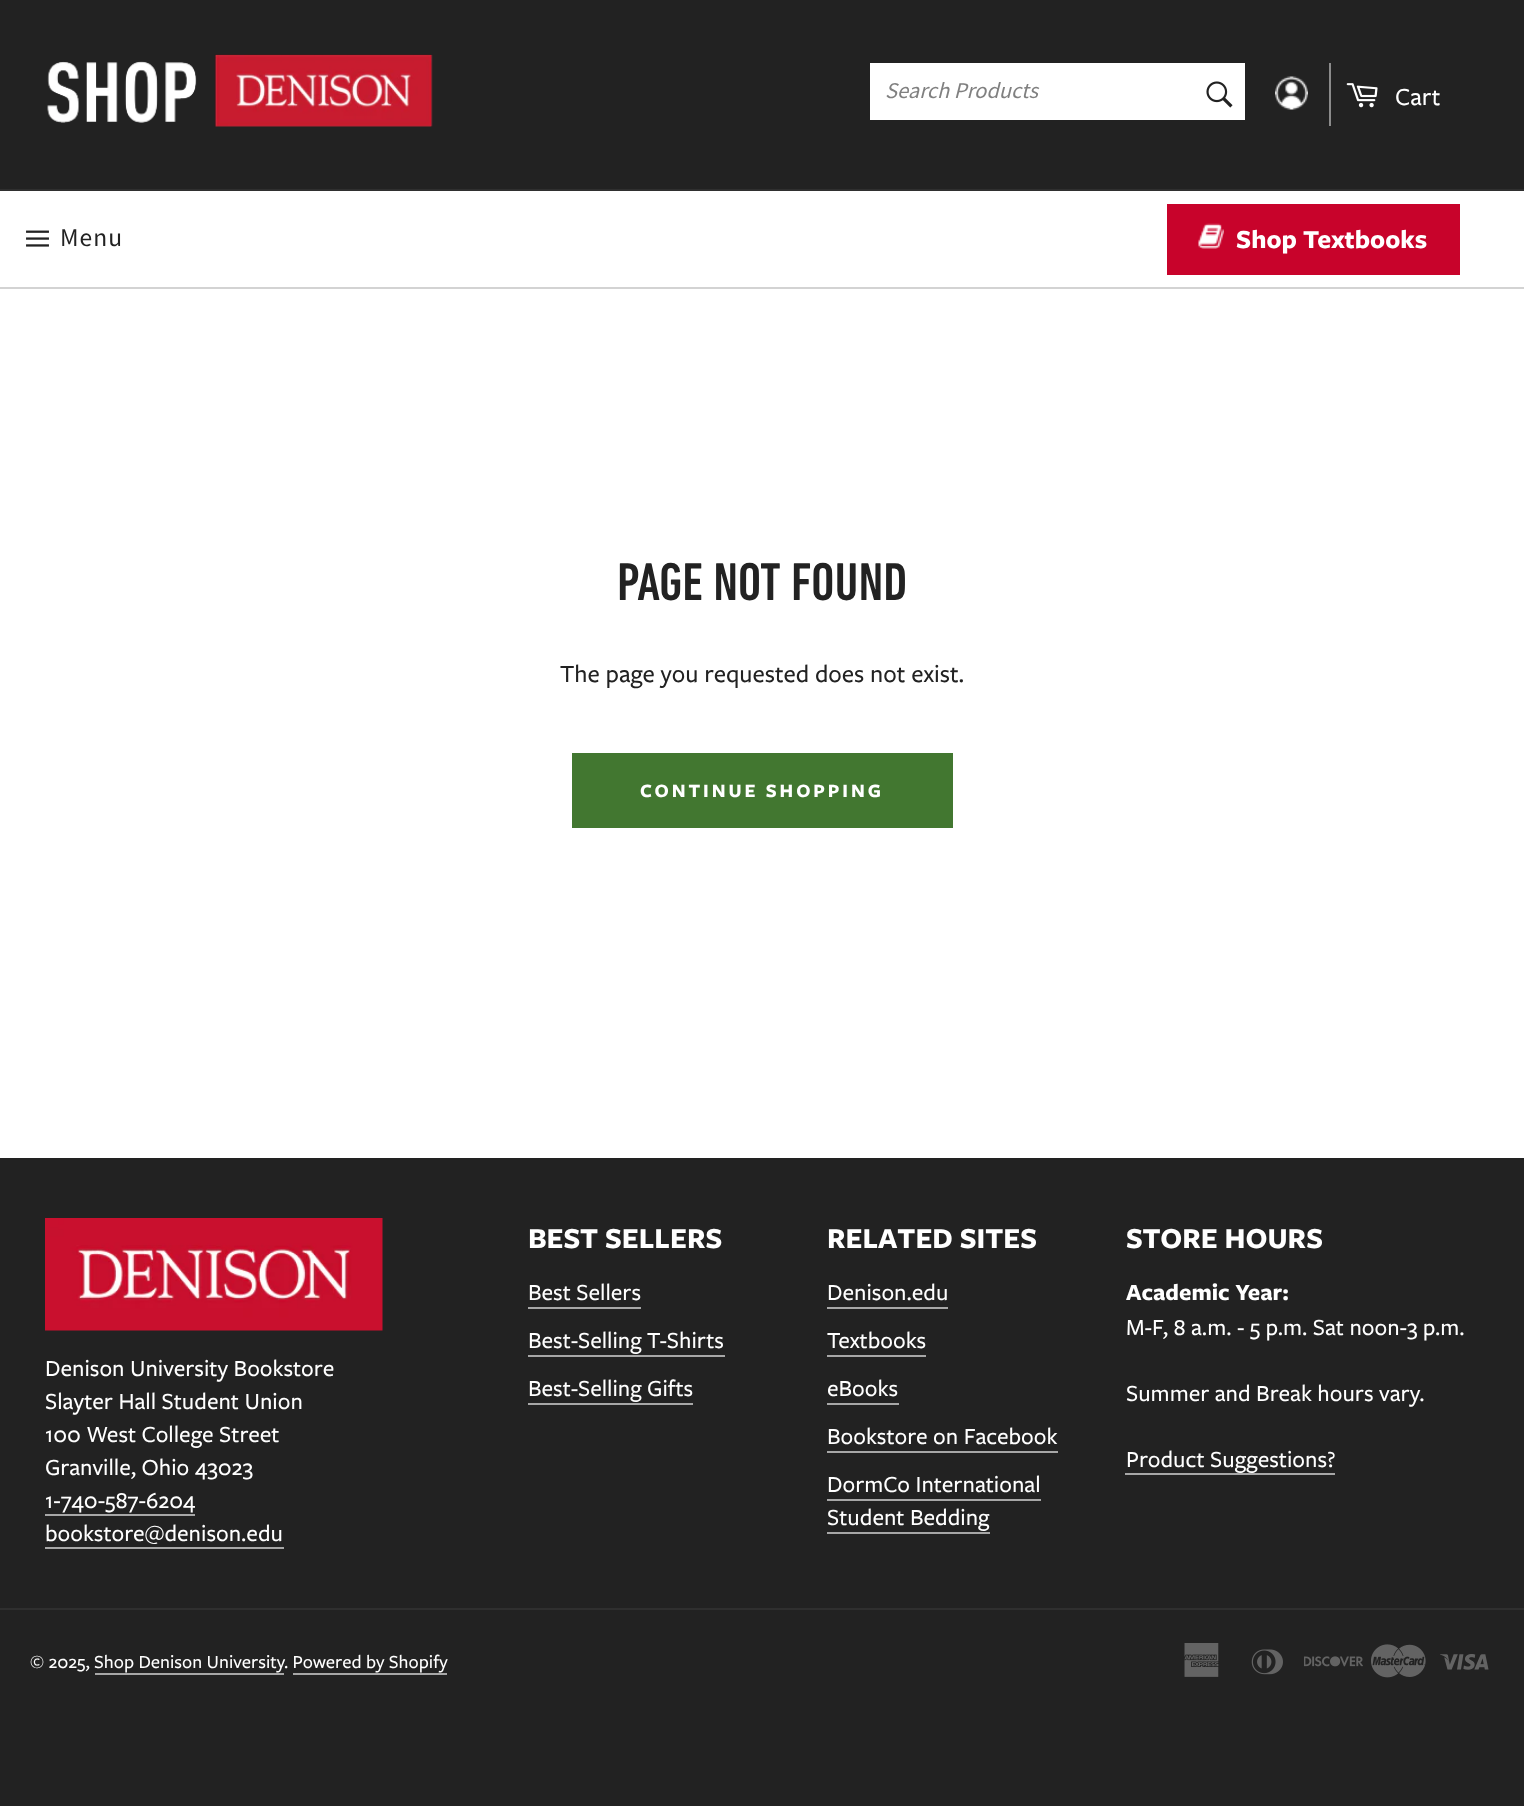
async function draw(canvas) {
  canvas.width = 1524;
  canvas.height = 1806;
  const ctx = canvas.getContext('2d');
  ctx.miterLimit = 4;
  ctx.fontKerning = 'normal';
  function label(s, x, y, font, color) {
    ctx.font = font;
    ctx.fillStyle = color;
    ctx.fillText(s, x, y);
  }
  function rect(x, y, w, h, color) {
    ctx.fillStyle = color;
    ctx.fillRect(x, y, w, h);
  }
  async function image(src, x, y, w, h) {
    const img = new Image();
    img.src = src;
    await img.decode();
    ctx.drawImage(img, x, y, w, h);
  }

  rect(0, 0, 1524, 1806, '#222');
  rect(0, 289, 1524, 869, '#fff');
  await image('assets/img1.png', 47, 54, 386, 73);
  rect(870, 63, 375, 57, '#fff');
  label('Search Products', 885, 98, 'italic 22.5px Source Sans Pro', '#808080');
  await image('assets/img2.png', 1206, 81, 27, 27);
  await image('assets/img3.png', 1275, 76, 33, 34);
  rect(1329, 63, 2, 63, '#8b8b8b');
  await image('assets/img4.png', 1346, 83, 32, 25);
  label('Cart', 1395, 105, '500 25.5px "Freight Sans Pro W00"', '#fff');
  rect(0, 191, 1524, 96, '#fff');
  rect(0, 189, 1524, 2, '#2f2f2f');
  rect(0, 287, 1524, 2, '#d3d3d3');
  await image('assets/img5.png', 26, 230, 23, 17);
  ctx.letterSpacing = '1px';
  label('Menu', 60, 246, '25.5px Source Sans Pro', '#222');
  rect(1167, 204, 293, 71, '#c8032b');
  await image('assets/img6.png', 1198, 223, 26, 26);
  ctx.letterSpacing = '0px';
  label('Shop Textbooks', 1236, 248, 'bold 27px "Freight Sans Pro W00"', '#fff');
  label('PAGE NOT FOUND', 617, 600, '500 54px DIN Next', '#222');
  label('The page you requested does not exist.', 560, 682, '500 25.5px "Freight Sans Pro W00"', '#222');
  rect(572, 753, 381, 75, '#427730');
  ctx.letterSpacing = '2.9px';
  label('CONTINUE SHOPPING', 640, 797, 'bold 19.5px "Freight Sans Pro W00"', '#fff');
  await image('assets/img7.png', 45, 1218, 338, 113);
  ctx.letterSpacing = '0px';
  label('Denison University Bookstore', 45, 1376, '500 24px "Freight Sans Pro W00"', '#fff');
  label('Slayter Hall Student Union', 45, 1409, '500 24px "Freight Sans Pro W00"', '#fff');
  label('100 West College Street', 45, 1442, '500 24px "Freight Sans Pro W00"', '#fff');
  label('Granville, Ohio 43023', 45, 1475, '500 24px "Freight Sans Pro W00"', '#fff');
  label('1-740-587-6204', 45, 1508, '500 24px "Freight Sans Pro W00"', '#fff');
  rect(45, 1514, 150, 2, '#a7a7a7');
  label('bookstore@denison.edu', 45, 1541, '500 24px "Freight Sans Pro W00"', '#fff');
  rect(45, 1547, 239, 2, '#a7a7a7');
  label('BEST SELLERS', 528, 1248, 'bold 30px "Freight Sans Pro W00"', '#fff');
  label('Best Sellers', 528, 1300, '500 24px "Freight Sans Pro W00"', '#fff');
  rect(528, 1307, 113, 2, '#a7a7a7');
  label('Best-Selling T-Shirts', 528, 1348, '500 24px "Freight Sans Pro W00"', '#fff');
  rect(528, 1355, 197, 2, '#a7a7a7');
  label('Best-Selling Gifts', 528, 1396, '500 24px "Freight Sans Pro W00"', '#fff');
  rect(528, 1403, 165, 2, '#a7a7a7');
  label('RELATED SITES', 827, 1248, 'bold 30px "Freight Sans Pro W00"', '#fff');
  label('Denison.edu', 827, 1300, '500 24px "Freight Sans Pro W00"', '#fff');
  rect(827, 1307, 121, 2, '#a7a7a7');
  label('Textbooks', 827, 1348, '500 24px "Freight Sans Pro W00"', '#fff');
  rect(827, 1355, 99, 2, '#a7a7a7');
  label('eBooks', 827, 1396, '500 24px "Freight Sans Pro W00"', '#fff');
  rect(827, 1403, 72, 2, '#a7a7a7');
  label('Bookstore on Facebook', 827, 1444, '500 24px "Freight Sans Pro W00"', '#fff');
  rect(827, 1451, 231, 2, '#a7a7a7');
  label('DormCo International', 827, 1492, '500 24px "Freight Sans Pro W00"', '#fff');
  rect(827, 1499, 214, 2, '#a7a7a7');
  label('Student Bedding', 827, 1525, '500 24px "Freight Sans Pro W00"', '#fff');
  rect(827, 1532, 163, 2, '#a7a7a7');
  label('STORE HOURS', 1126, 1248, 'bold 30px "Freight Sans Pro W00"', '#fff');
  label('Academic Year:', 1126, 1300, 'bold 24px "Freight Sans Pro W00"', '#fff');
  label('M-F, 8 a.m. - 5 p.m. Sat noon-3 p.m.', 1126, 1335, '500 24px "Freight Sans Pro W00"', '#fff');
  label('Summer and Break hours vary.', 1126, 1401, '500 24px "Freight Sans Pro W00"', '#fff');
  label('Product Suggestions?', 1126, 1467, '500 24px "Freight Sans Pro W00"', '#fff');
  rect(1125, 1473, 210, 2, '#a7a7a7');
  rect(0, 1608, 1524, 2, '#2f2f2f');
  label('© 2025,', 30, 1668, '500 19.25px "Freight Sans Pro W00"', '#fff');
  label('Shop Denison University', 94, 1668, '500 19.25px "Freight Sans Pro W00"', '#fff');
  rect(95, 1673, 189, 2, '#a7a7a7');
  label('. Powered by Shopify', 284, 1668, '500 19.25px "Freight Sans Pro W00"', '#fff');
  rect(293, 1673, 154, 2, '#a7a7a7');
  await image('assets/img8.png', 1184, 1643, 35, 34);
  await image('assets/img9.png', 1251, 1649, 32, 26);
  await image('assets/img10.png', 1304, 1656, 59, 11);
  await image('assets/img11.png', 1371, 1644, 55, 34);
  await image('assets/img12.png', 1440, 1654, 49, 16);
}

draw(document.querySelector('canvas'));
